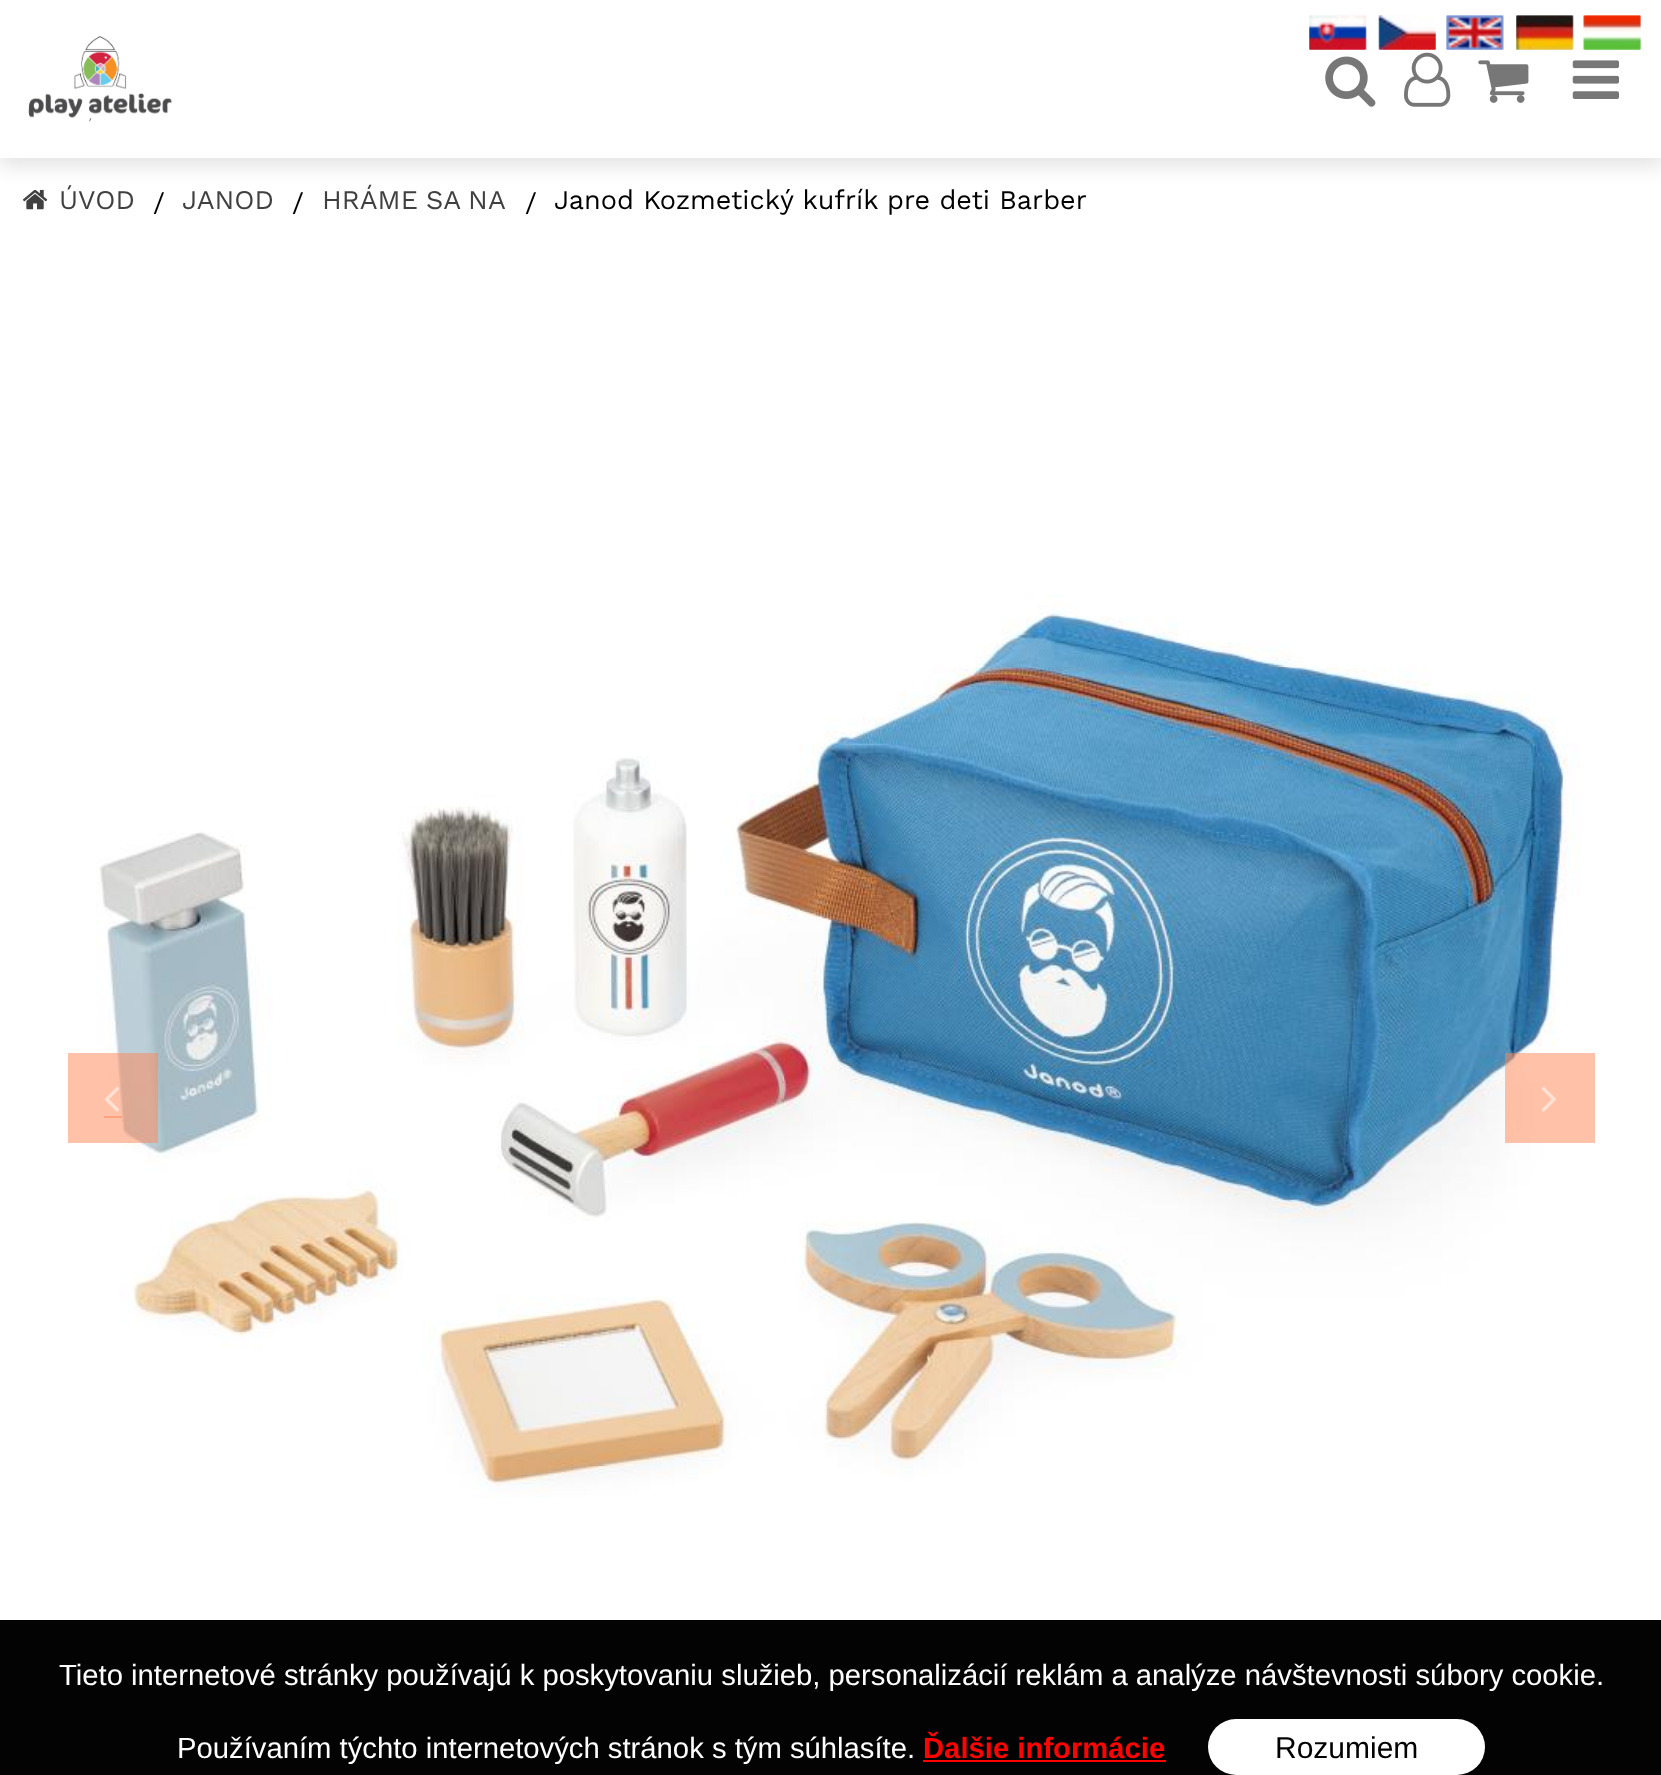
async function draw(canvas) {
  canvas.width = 1661;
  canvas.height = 1775;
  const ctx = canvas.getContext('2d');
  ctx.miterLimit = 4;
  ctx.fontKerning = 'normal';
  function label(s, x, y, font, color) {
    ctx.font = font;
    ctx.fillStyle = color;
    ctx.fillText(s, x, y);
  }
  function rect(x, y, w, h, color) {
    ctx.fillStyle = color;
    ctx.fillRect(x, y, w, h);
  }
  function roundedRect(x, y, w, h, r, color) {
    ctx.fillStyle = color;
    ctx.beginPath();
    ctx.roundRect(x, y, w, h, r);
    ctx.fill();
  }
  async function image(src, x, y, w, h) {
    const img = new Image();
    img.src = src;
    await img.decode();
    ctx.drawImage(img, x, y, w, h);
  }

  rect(0, 0, 1661, 1775, '#fff');
  await image('assets/img16.png', 22, 189, 26, 21);
  ctx.fillStyle = '#0000001a';
  ctx.filter = 'blur(9px)';
  ctx.beginPath();
  ctx.rect(0, 9, 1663, 158);
  ctx.fill();
  ctx.filter = 'none';
  rect(0, 0, 1661, 158, '#fff');
  await image('assets/img1.png', 1309, 15, 58, 35);
  await image('assets/img2.png', 1378, 15, 58, 35);
  await image('assets/img3.png', 1446, 15, 58, 35);
  await image('assets/img4.png', 1516, 15, 58, 35);
  await image('assets/img5.png', 1583, 15, 58, 35);
  await image('assets/img6.png', 1309, 15, 58, 35);
  await image('assets/img7.png', 1378, 15, 58, 35);
  await image('assets/img8.png', 1446, 15, 58, 35);
  await image('assets/img9.png', 1516, 15, 58, 35);
  await image('assets/img10.png', 1583, 15, 58, 35);
  await image('assets/img11.png', 28, 36, 145, 86);
  await image('assets/img12.png', 1325, 56, 51, 51);
  await image('assets/img13.png', 1404, 52, 47, 55);
  await image('assets/img14.png', 1478, 60, 51, 43);
  await image('assets/img15.png', 1572, 60, 48, 39);
  label('ÚVOD', 59, 209, '27px Work Sans', '#404040');
  label('/', 153, 212, '27px Work Sans', '#000');
  label('JANOD', 182, 209, '27px Work Sans', '#404040');
  label('/', 292, 212, '27px Work Sans', '#000');
  ctx.wordSpacing = '-1px';
  label('HRÁME SA NA', 322, 209, '27px Work Sans', '#404040');
  ctx.wordSpacing = '0px';
  label('/', 525, 212, '27px Work Sans', '#000');
  label('Janod Kozmetický kufrík pre deti Barber', 554, 209, '27px Work Sans', '#000');
  await image('assets/img17.png', 96, 594, 1485, 904);
  rect(68, 1053, 90, 90, '#ff855480');
  rect(104, 1116, 18, 2, '#ff855480');
  await image('assets/img18.png', 104, 1086, 16, 26);
  rect(1505, 1053, 90, 90, '#ff855480');
  await image('assets/img19.png', 1541, 1086, 15, 26);
  rect(0, 1620, 1661, 155, '#030303');
  label('Tieto internetové stránky používajú k poskytovaniu služieb, personalizácií reklám a analýze návštevnosti súbory cookie.', 59, 1685, '29.25px Liberation Sans', '#fff');
  label('Používaním týchto internetových stránok s tým súhlasíte.', 177, 1758, '29.25px Liberation Sans', '#fff');
  label('Ďalšie informácie', 923, 1758, 'bold 29.25px Liberation Sans', '#ff0303');
  rect(923, 1760, 243, 2, '#ff0303');
  roundedRect(1208, 1719, 277, 56, 28, '#fff');
  label('Rozumiem', 1275, 1758, '30px Liberation Sans', '#000');
}

draw(document.querySelector('canvas'));
